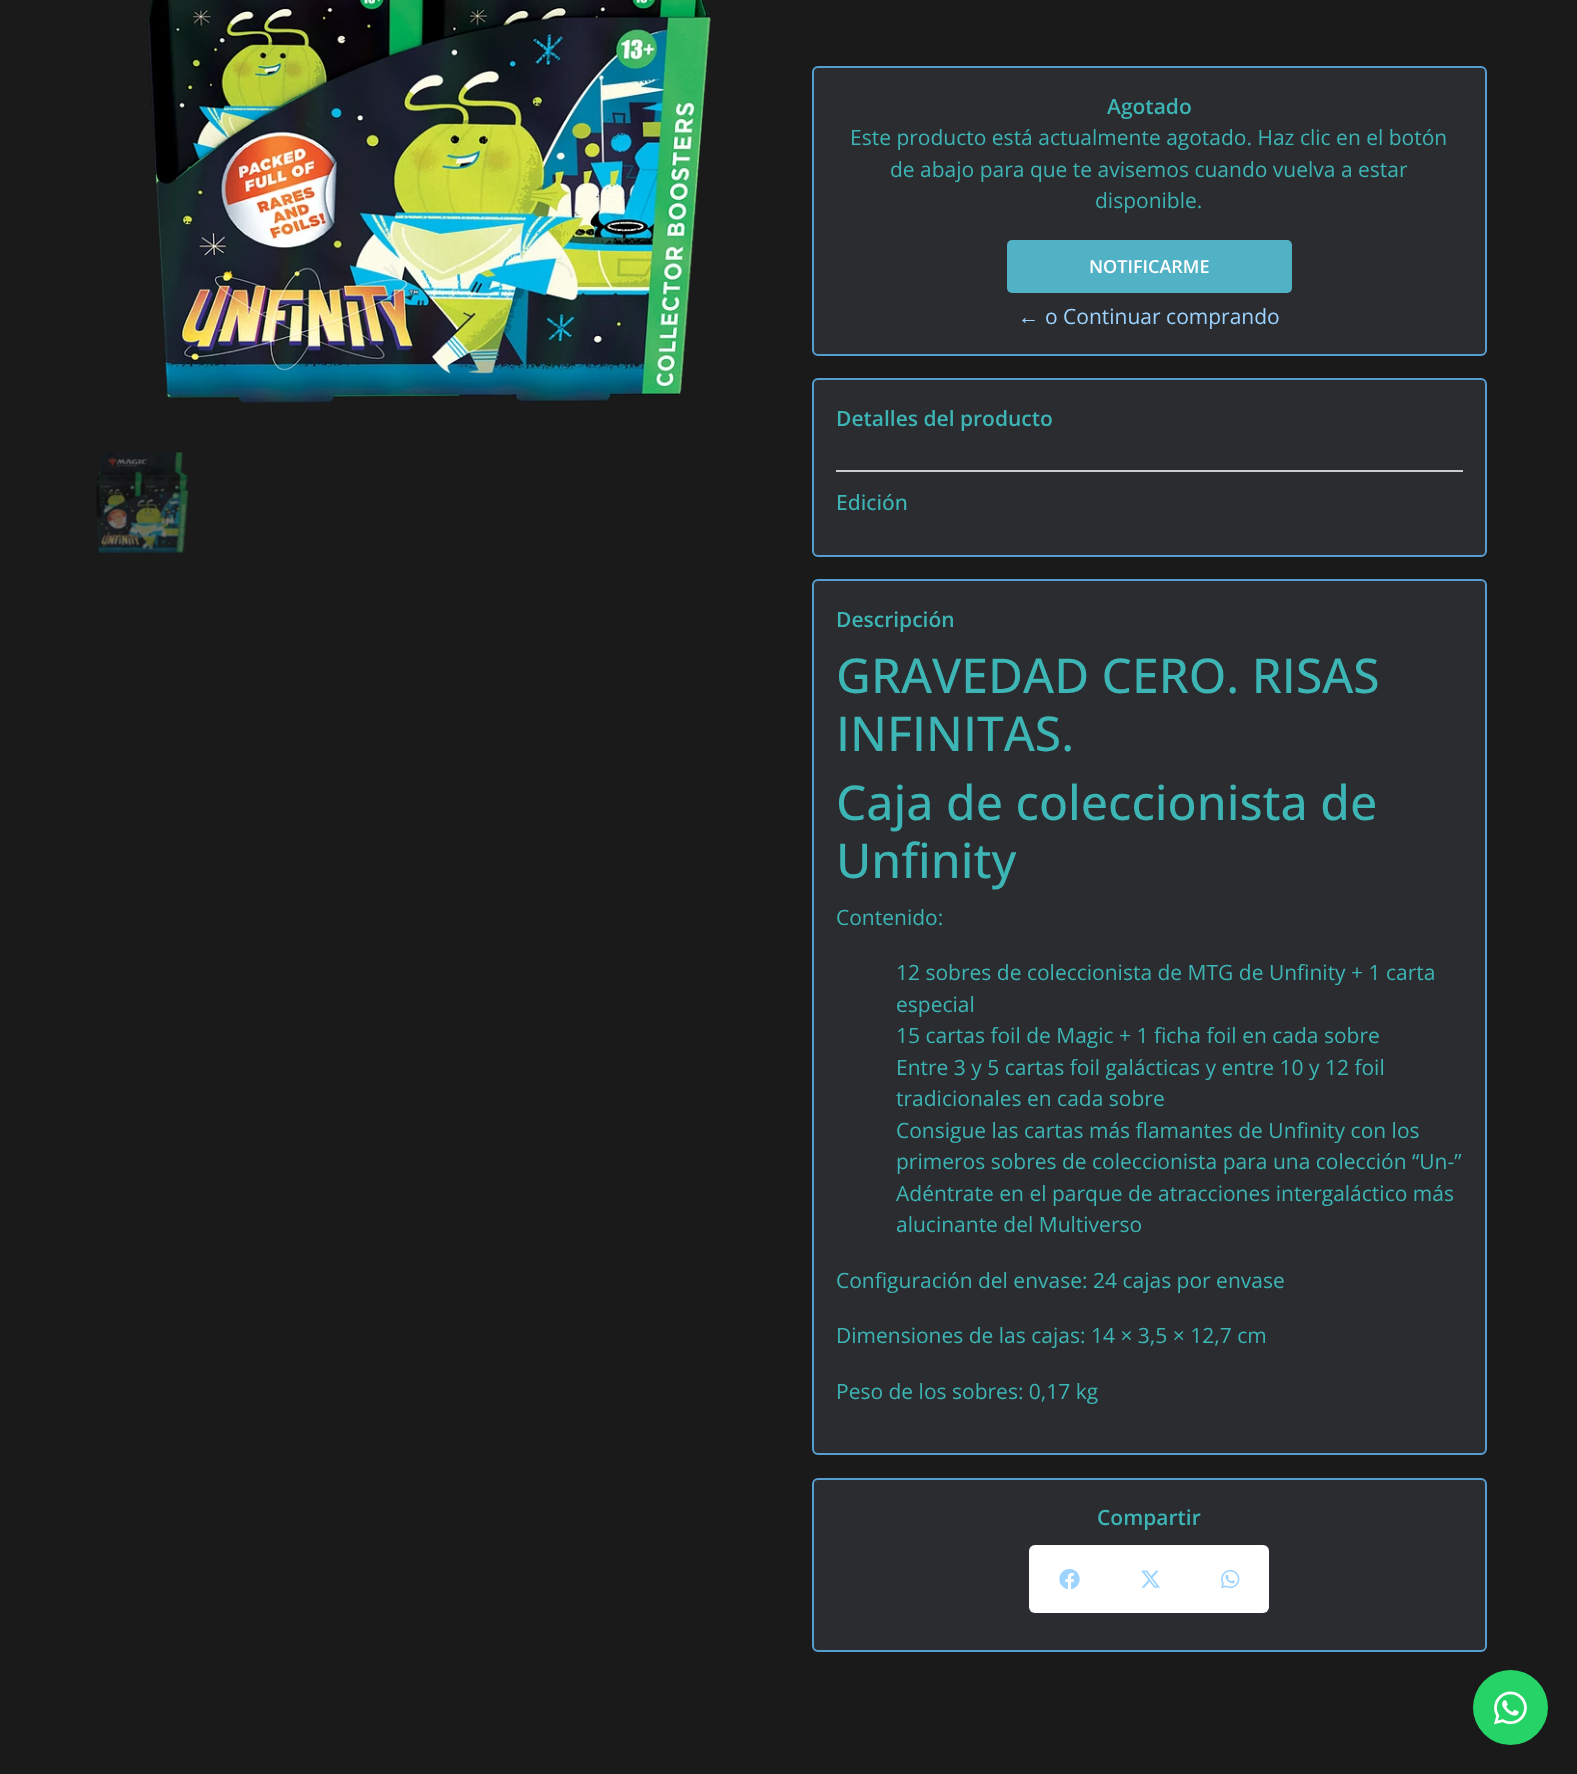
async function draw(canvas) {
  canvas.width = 1577;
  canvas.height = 1774;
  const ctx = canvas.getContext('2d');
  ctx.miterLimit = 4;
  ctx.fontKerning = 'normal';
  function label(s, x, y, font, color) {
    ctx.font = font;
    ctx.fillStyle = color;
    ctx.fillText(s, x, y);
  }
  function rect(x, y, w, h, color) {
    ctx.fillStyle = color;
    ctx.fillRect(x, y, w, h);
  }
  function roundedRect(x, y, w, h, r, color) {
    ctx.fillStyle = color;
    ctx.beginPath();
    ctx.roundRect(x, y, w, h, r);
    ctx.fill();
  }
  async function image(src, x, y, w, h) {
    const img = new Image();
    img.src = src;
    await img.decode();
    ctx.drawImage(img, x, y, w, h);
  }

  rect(0, 0, 1577, 1774, '#1a1a1a');
  await image('assets/img1.png', 147, 0, 564, 403);
  await image('assets/img2.png', 96, 452, 93, 101);
  ctx.fillStyle = '#2b2c30';
  ctx.beginPath();
  ctx.roundRect(813, 67, 673, 288, 5);
  ctx.fill();
  ctx.strokeStyle = '#569ecf';
  ctx.lineWidth = 2;
  ctx.stroke();
  label('Agotado', 1107, 114, '600 21px Open Sans', '#3db5b5');
  label('Este producto está actualmente agotado. Haz clic en el botón', 850, 145, '21px Open Sans', '#3db5b5');
  label('de abajo para que te avisemos cuando vuelva a estar', 890, 177, '21px Open Sans', '#3db5b5');
  label('disponible.', 1095, 208, '21px Open Sans', '#3db5b5');
  roundedRect(1007, 240, 285, 53, 5, '#52b2c5');
  label('NOTIFICARME', 1089, 273, '600 18px Open Sans', '#fff');
  label('←', 1018, 324, '21px Liberation Serif', '#9cd3ff');
  label('o Continuar comprando', 1045, 324, '21px Open Sans', '#9cd3ff');
  ctx.fillStyle = '#2b2c30';
  ctx.beginPath();
  ctx.roundRect(813, 379, 673, 177, 5);
  ctx.fill();
  ctx.stroke();
  label('Detalles del producto', 836, 426, '600 21px Open Sans', '#3db5b5');
  rect(836, 470, 627, 2, '#ccc');
  label('Edición', 836, 510, '500 21px Open Sans', '#3db5b5');
  ctx.fillStyle = '#2b2c30';
  ctx.beginPath();
  ctx.roundRect(813, 580, 673, 874, 5);
  ctx.fill();
  ctx.stroke();
  label('Descripción', 836, 627, '600 21px Open Sans', '#3db5b5');
  label('GRAVEDAD CERO. RISAS', 836, 693, '500 48px Open Sans', '#3db5b5');
  label('INFINITAS.', 836, 751, '500 48px Open Sans', '#3db5b5');
  label('Caja de coleccionista de', 836, 820, '500 48px Open Sans', '#3db5b5');
  label('Unfinity', 836, 878, '500 48px Open Sans', '#3db5b5');
  label('Contenido:', 836, 925, '21px Open Sans', '#3db5b5');
  label('12 sobres de coleccionista de MTG de Unfinity + 1 carta', 896, 980, '21px Open Sans', '#3db5b5');
  label('especial', 896, 1012, '21px Open Sans', '#3db5b5');
  label('15 cartas foil de Magic + 1 ficha foil en cada sobre', 896, 1043, '21px Open Sans', '#3db5b5');
  label('Entre 3 y 5 cartas foil galácticas y entre 10 y 12 foil', 896, 1075, '21px Open Sans', '#3db5b5');
  label('tradicionales en cada sobre', 896, 1106, '21px Open Sans', '#3db5b5');
  label('Consigue las cartas más flamantes de Unfinity con los', 896, 1138, '21px Open Sans', '#3db5b5');
  label('primeros sobres de coleccionista para una colección “Un-”', 896, 1169, '21px Open Sans', '#3db5b5');
  label('Adéntrate en el parque de atracciones intergaláctico más', 896, 1201, '21px Open Sans', '#3db5b5');
  label('alucinante del Multiverso', 896, 1232, '21px Open Sans', '#3db5b5');
  label('Configuración del envase: 24 cajas por envase', 836, 1288, '21px Open Sans', '#3db5b5');
  label('Dimensiones de las cajas: 14 × 3,5 × 12,7 cm', 836, 1343, '21px Open Sans', '#3db5b5');
  label('Peso de los sobres: 0,17 kg', 836, 1399, '21px Open Sans', '#3db5b5');
  ctx.fillStyle = '#2b2c30';
  ctx.beginPath();
  ctx.roundRect(813, 1479, 673, 172, 5);
  ctx.fill();
  ctx.stroke();
  label('Compartir', 1097, 1525, '600 21px Open Sans', '#3db5b5');
  ctx.fillStyle = '#fff';
  ctx.beginPath();
  ctx.roundRect(1029, 1545, 81, 68, [6, 0, 0, 6]);
  ctx.fill();
  await image('assets/img3.png', 1059, 1569, 21, 21);
  rect(1110, 1545, 81, 68, '#fff');
  await image('assets/img4.png', 1141, 1570, 19, 18);
  ctx.beginPath();
  ctx.roundRect(1191, 1545, 78, 68, [0, 6, 6, 0]);
  ctx.fill();
  await image('assets/img5.png', 1221, 1570, 19, 19);
  ctx.fillStyle = '#25d366';
  ctx.beginPath();
  ctx.arc(1510.5, 1707.5, 37.5, 0, 2 * Math.PI);
  ctx.fill();
  await image('assets/img6.png', 1494, 1691, 33, 34);
}

draw(document.querySelector('canvas'));
